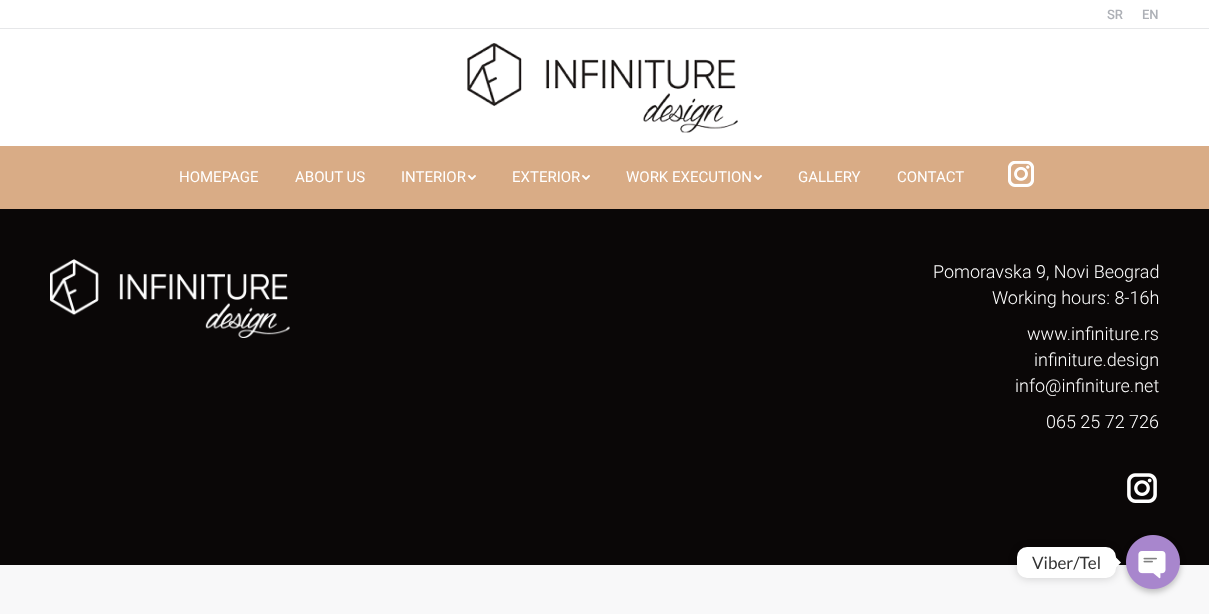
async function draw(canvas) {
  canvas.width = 1209;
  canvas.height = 614;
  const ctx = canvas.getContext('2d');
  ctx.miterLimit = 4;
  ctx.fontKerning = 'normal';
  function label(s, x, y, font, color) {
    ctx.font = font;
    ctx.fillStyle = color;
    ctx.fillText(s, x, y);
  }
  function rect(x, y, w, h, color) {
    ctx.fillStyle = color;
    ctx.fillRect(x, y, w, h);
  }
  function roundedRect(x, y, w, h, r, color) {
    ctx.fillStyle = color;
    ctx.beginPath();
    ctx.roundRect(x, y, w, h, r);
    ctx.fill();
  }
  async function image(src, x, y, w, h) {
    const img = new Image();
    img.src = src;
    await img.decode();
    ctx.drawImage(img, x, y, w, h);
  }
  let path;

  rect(0, 0, 1209, 614, '#f8f8f9');
  rect(0, 0, 1209, 146, '#fff');
  label('SR', 1107, 19, '500 13px Roboto', '#adb0b6');
  label('EN', 1142, 19, '500 13px Roboto', '#adb0b6');
  rect(0, 28, 1209, 1, '#e6e7e9');
  await image('assets/img1.png', 467, 43, 271, 90);
  rect(0, 146, 1209, 63, '#d9ac86');
  label('HOMEPAGE', 179, 182, '15px Roboto', '#fff');
  label('ABOUT US', 295, 182, '15px Roboto', '#fff');
  label('INTERIOR', 401, 182, '15px Roboto', '#fff');
  await image('assets/img2.png', 468, 175, 8, 5);
  label('EXTERIOR', 512, 182, '15px Roboto', '#fff');
  await image('assets/img2.png', 582, 175, 8, 5);
  label('WORK EXECUTION', 626, 182, '15px Roboto', '#fff');
  await image('assets/img2.png', 754, 175, 8, 5);
  label('GALLERY', 798, 182, '15px Roboto', '#fff');
  label('CONTACT', 897, 182, '15px Roboto', '#fff');
  await image('assets/img3.png', 1008, 161, 26, 26);
  rect(0, 209, 1209, 356, '#0a0707');
  await image('assets/img4.png', 50, 259, 240, 79);
  label('Pomoravska 9, Novi Beograd', 933, 278, '300 18px Roboto', '#fff');
  label('Working hours: 8-16h', 992, 304, '300 18px Roboto', '#fff');
  label('www.infiniture.rs', 1027, 340, '300 18px Roboto', '#fff');
  label('infiniture.design', 1034, 366, '300 18px Roboto', '#fff');
  label('info@infiniture.net', 1015, 392, '300 18px Roboto', '#fff');
  label('065 25 72 726', 1046, 428, '300 18px Roboto', '#fff');
  await image('assets/img5.png', 1127, 473, 30, 30);
  ctx.fillStyle = '#00000026';
  ctx.filter = 'blur(4px)';
  ctx.beginPath();
  ctx.roundRect(1017, 548, 99, 31, 10);
  ctx.fill();
  ctx.filter = 'none';
  roundedRect(1017, 547, 99, 31, 10, '#fff');
  label('Viber/Tel', 1032, 569, '17px Lato', '#333');
  ctx.fillStyle = '#fff';
  path = new Path2D('M1116 567.5V557.5L1121 562.5Z');
  ctx.fill(path);
  ctx.fillStyle = '#00000040';
  ctx.filter = 'blur(3px)';
  ctx.beginPath();
  ctx.roundRect(1126, 538, 54, 54, 27);
  ctx.fill();
  ctx.filter = 'none';
  await image('assets/img6.png', 1126, 535, 54, 54);
}

draw(document.querySelector('canvas'));
